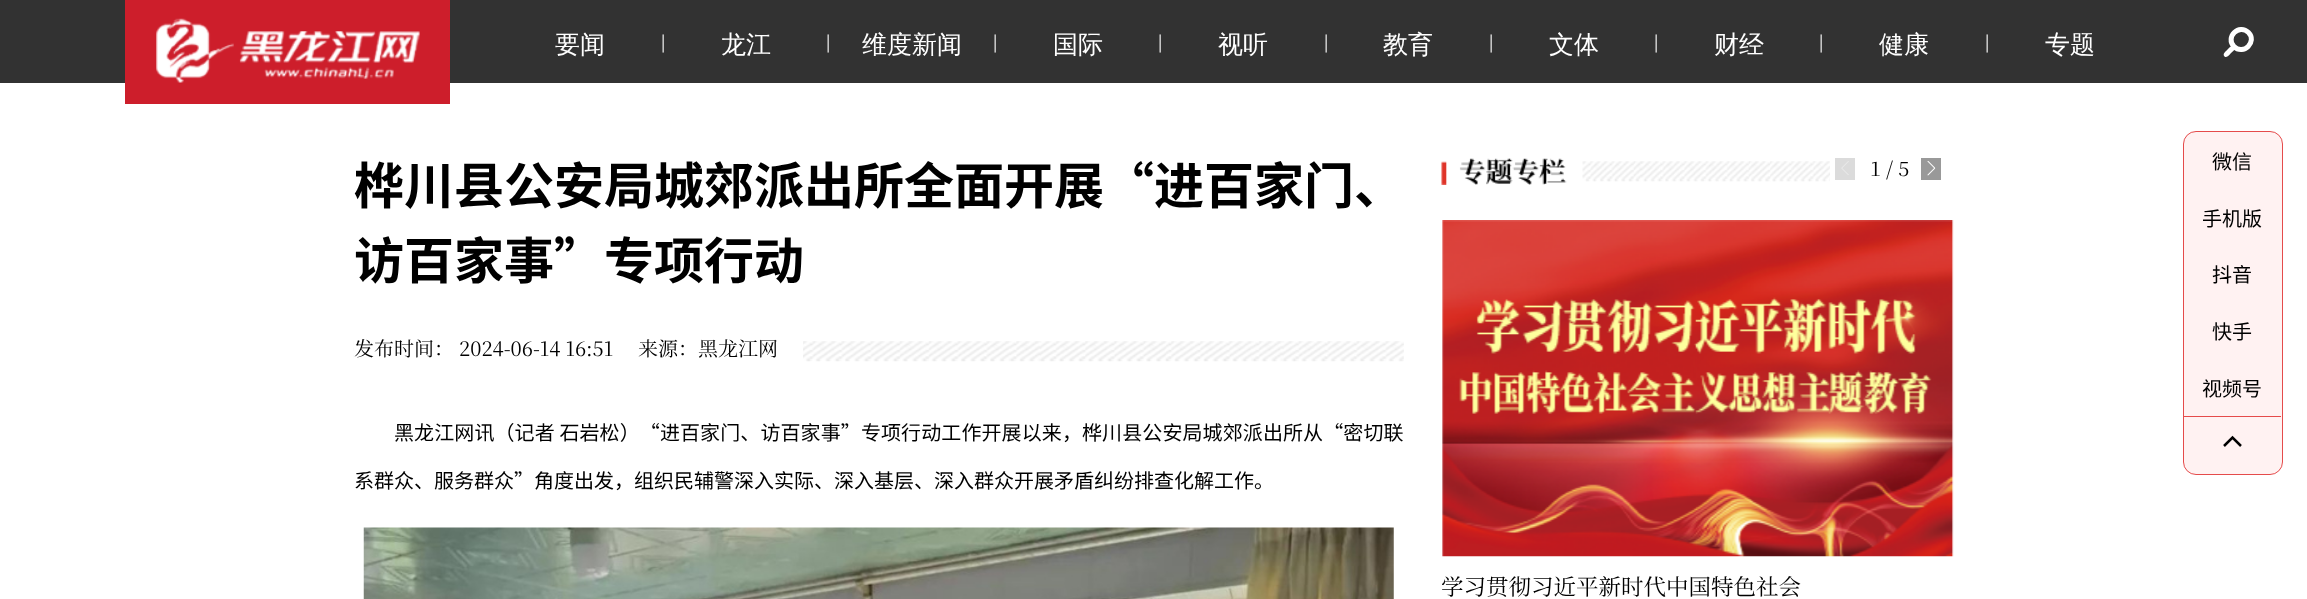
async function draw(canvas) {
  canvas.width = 2307;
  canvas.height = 599;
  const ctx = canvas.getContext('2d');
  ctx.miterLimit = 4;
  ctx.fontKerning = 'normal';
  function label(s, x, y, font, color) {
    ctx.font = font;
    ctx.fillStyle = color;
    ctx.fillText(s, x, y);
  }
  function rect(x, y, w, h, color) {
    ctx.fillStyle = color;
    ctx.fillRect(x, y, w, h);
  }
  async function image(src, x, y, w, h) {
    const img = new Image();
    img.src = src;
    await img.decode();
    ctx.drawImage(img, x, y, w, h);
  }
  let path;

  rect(0, 0, 2307, 599, '#fff');
  rect(0, 0, 2307, 83, '#323232');
  rect(125, 0, 325, 104, '#cd1e2b');
  await image('assets/img1.png', 156, 18, 264, 65);
  label('要闻', 555, 53, '500 25px WenQuanYi Zen Hei', '#fff');
  label('|', 661, 48, '16px Noto Sans SC', '#fff');
  label('龙江', 721, 53, '500 25px WenQuanYi Zen Hei', '#fff');
  label('|', 826, 48, '16px Noto Sans SC', '#fff');
  label('维度新闻', 862, 53, '500 25px WenQuanYi Zen Hei', '#fff');
  label('|', 993, 48, '16px Noto Sans SC', '#fff');
  label('国际', 1053, 53, '500 25px WenQuanYi Zen Hei', '#fff');
  label('|', 1158, 48, '16px Noto Sans SC', '#fff');
  label('视听', 1218, 53, '500 25px WenQuanYi Zen Hei', '#fff');
  label('|', 1324, 48, '16px Noto Sans SC', '#fff');
  label('教育', 1383, 53, '500 25px WenQuanYi Zen Hei', '#fff');
  label('|', 1489, 48, '16px Noto Sans SC', '#fff');
  label('文体', 1549, 53, '500 25px WenQuanYi Zen Hei', '#fff');
  label('|', 1654, 48, '16px Noto Sans SC', '#fff');
  label('财经', 1714, 53, '500 25px WenQuanYi Zen Hei', '#fff');
  label('|', 1819, 48, '16px Noto Sans SC', '#fff');
  label('健康', 1879, 53, '500 25px WenQuanYi Zen Hei', '#fff');
  label('|', 1985, 48, '16px Noto Sans SC', '#fff');
  label('专题', 2045, 53, '500 25px WenQuanYi Zen Hei', '#fff');
  path = new Path2D('M2234 46.5C2236.5 49 2232.5 51.5 2231 53C2229.5 54.5 2227 58.5 2224.5 56.5C2222 54 2226 51 2227.5 49.5C2229 48 2232 44 2234 46.5Z');
  ctx.fill(path);
  path = new Path2D('M2248.5 32.5C2257.5 41.5 2243.5 56 2234 46.5C2225 37.5 2239 23 2248.5 32.5Z');
  ctx.strokeStyle = '#fff';
  ctx.lineWidth = 5;
  ctx.stroke(path);
  label('桦川县公安局城郊派出所全面开展“进百家门、', 354, 204, 'bold 50px Noto Sans SC', '#000');
  label('访百家事”专项行动', 354, 279, 'bold 50px Noto Sans SC', '#000');
  await image('assets/img2.png', 353, 341, 1051, 21);
  rect(354, 341, 449, 21, '#fff');
  label('发布时间： 2024-06-14 16:51', 354, 356, '20px Noto Serif SC', '#000');
  label('来源：黑龙江网', 638, 356, '20px Noto Serif SC', '#000');
  ctx.letterSpacing = '0.1px';
  label('黑龙江网讯（记者 石岩松）“进百家门、访百家事”专项行动工作开展以来，桦川县公安局城郊派出所从“密切联', 394, 440, '20px Noto Sans SC', '#000');
  ctx.letterSpacing = '0px';
  label('系群众、服务群众”角度出发，组织民辅警深入实际、深入基层、深入群众开展矛盾纠纷排查化解工作。', 354, 488, '20px Noto Sans SC', '#000');
  await image('assets/img3.png', 363, 527, 1031, 72);
  await image('assets/img4.png', 1441, 158, 389, 27);
  rect(1835, 158, 20, 22, '#dbdbdb');
  await image('assets/img5.png', 1841, 161, 8, 14);
  label('1 / 5', 1870, 176, '20px Noto Serif SC', '#000');
  rect(1921, 158, 20, 22, '#999');
  await image('assets/img6.png', 1927, 161, 9, 15);
  await image('assets/img7.png', 1442, 220, 512, 337);
  label('学习贯彻习近平新时代中国特色社会', 1441, 595, '22.5px Noto Serif SC', '#000');
  ctx.fillStyle = '#fff2f2';
  ctx.beginPath();
  ctx.roundRect(2183.5, 131.5, 99, 343, 12.5);
  ctx.fill();
  ctx.strokeStyle = '#e54b4b';
  ctx.lineWidth = 1;
  ctx.stroke();
  label('微信', 2212, 169, '20px Noto Sans SC', '#000');
  label('手机版', 2202, 226, '20px Noto Sans SC', '#000');
  label('抖音', 2212, 282, '20px Noto Sans SC', '#000');
  label('快手', 2212, 339, '20px Noto Sans SC', '#000');
  label('视频号', 2202, 396, '20px Noto Sans SC', '#000');
  rect(2184, 416, 97, 1, '#e54b4b');
  path = new Path2D('M2224 446L2232.5 437.5L2241 446');
  ctx.strokeStyle = '#000';
  ctx.lineWidth = 2.5;
  ctx.stroke(path);
}

draw(document.querySelector('canvas'));
